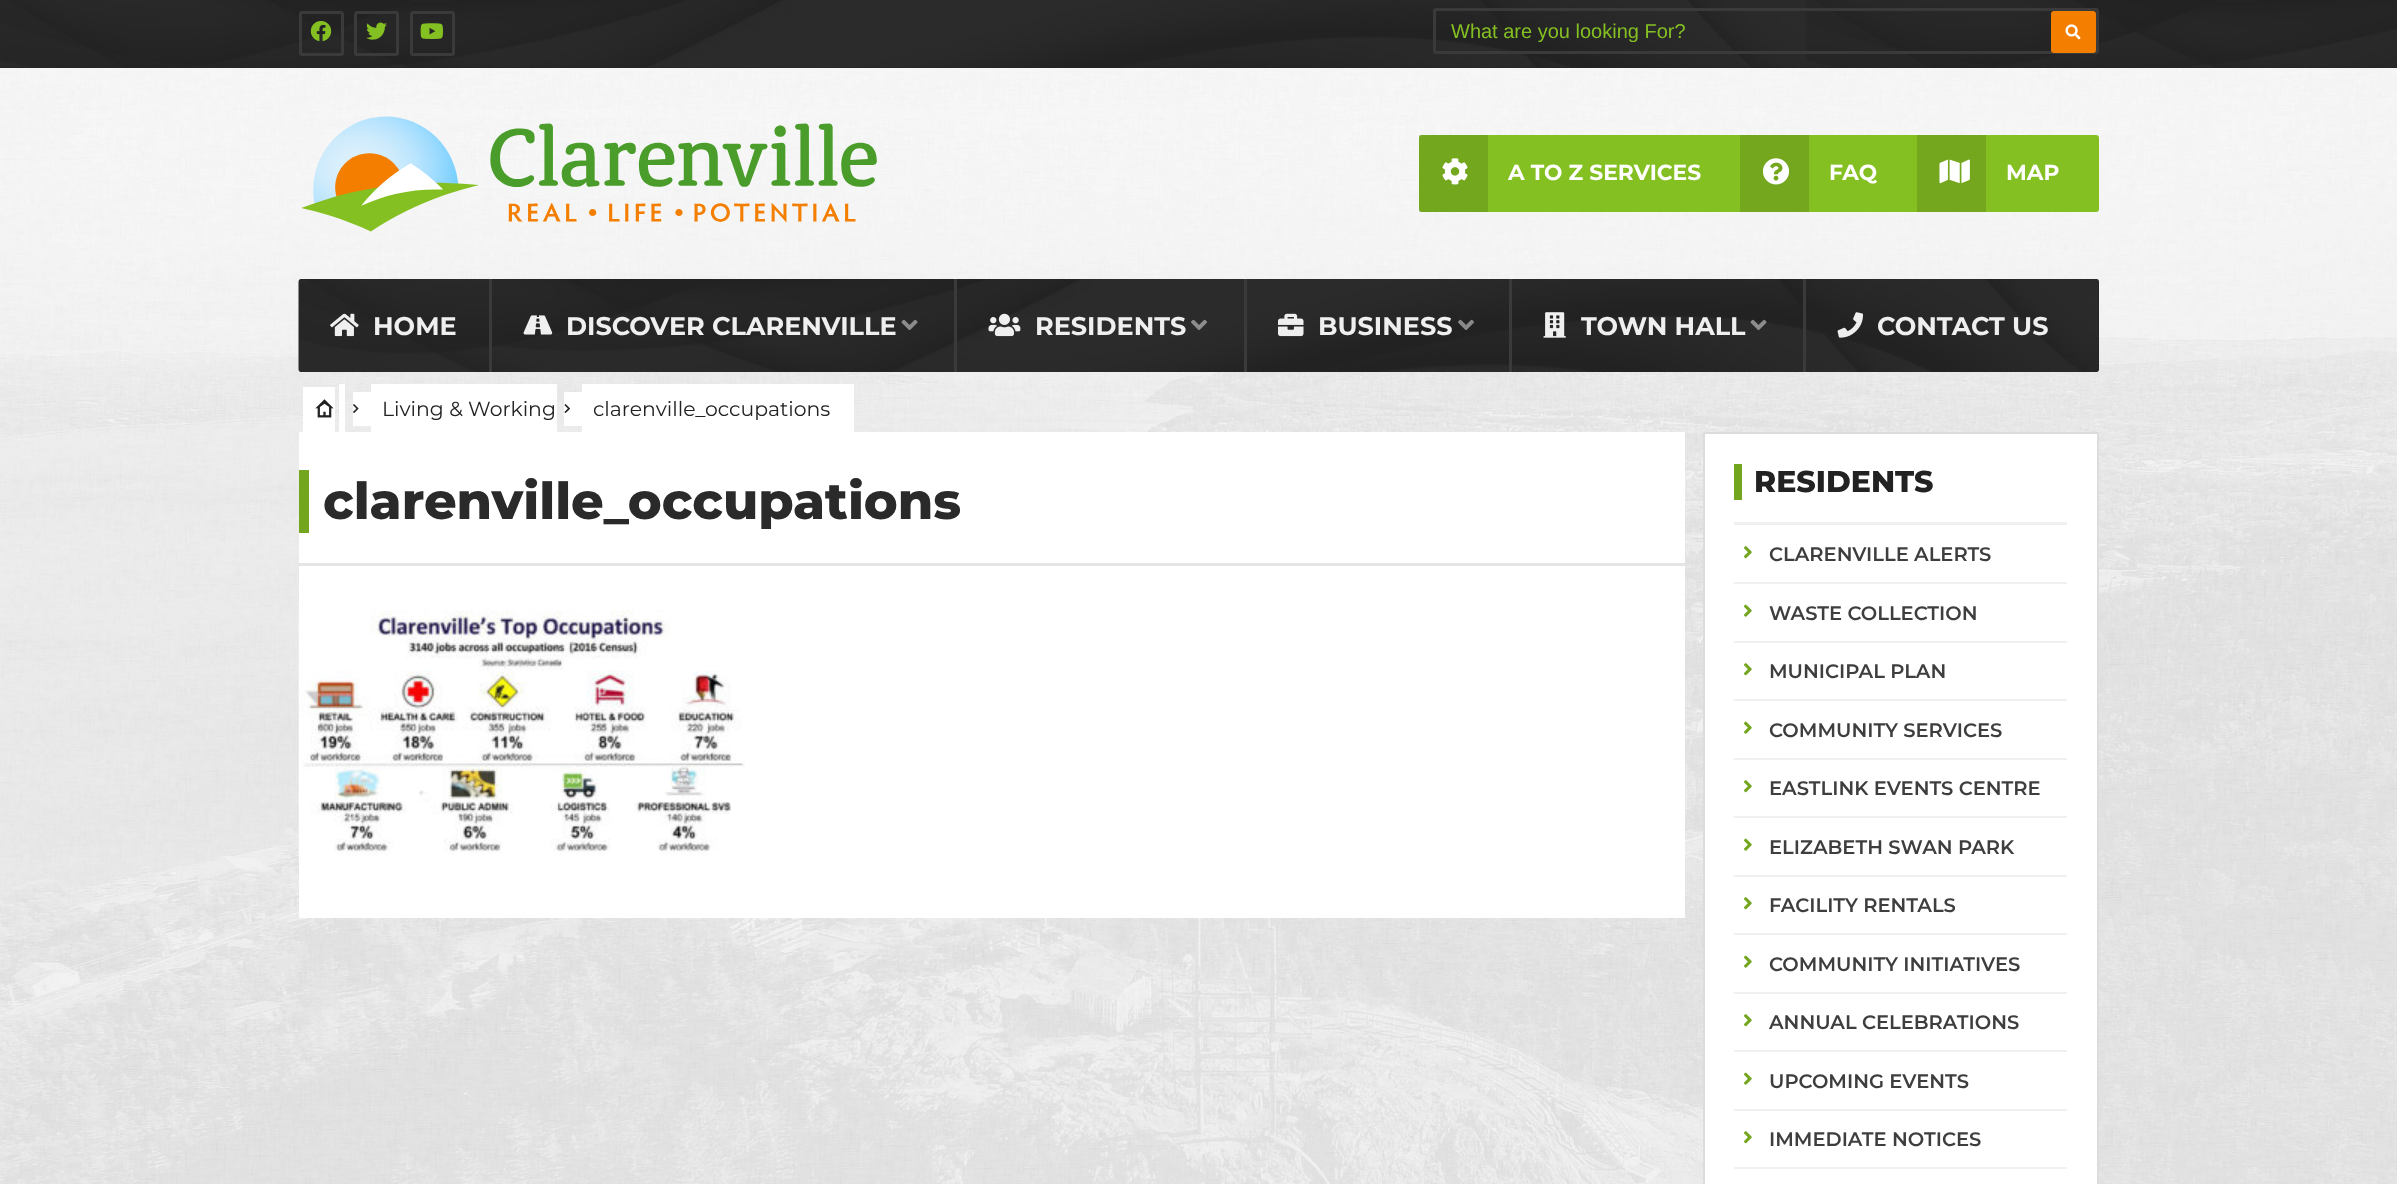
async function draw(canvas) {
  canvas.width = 2397;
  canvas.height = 1184;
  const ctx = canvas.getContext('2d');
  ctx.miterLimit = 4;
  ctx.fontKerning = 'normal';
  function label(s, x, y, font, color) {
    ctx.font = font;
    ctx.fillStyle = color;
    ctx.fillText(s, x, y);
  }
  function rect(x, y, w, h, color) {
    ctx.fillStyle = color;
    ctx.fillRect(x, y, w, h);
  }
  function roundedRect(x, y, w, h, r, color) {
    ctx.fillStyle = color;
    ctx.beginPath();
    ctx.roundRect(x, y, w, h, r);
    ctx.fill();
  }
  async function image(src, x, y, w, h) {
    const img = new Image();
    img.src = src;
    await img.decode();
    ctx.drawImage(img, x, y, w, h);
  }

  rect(0, 0, 2397, 1184, '#fff');
  await image('assets/img1.png', 0, 68, 2397, 1116);
  rect(0, 67, 2397, 1, '#222');
  await image('assets/img2.png', 0, 0, 2397, 68);
  ctx.beginPath();
  ctx.roundRect(300.5, 12.5, 42, 42, 1.5);
  ctx.strokeStyle = '#3a3a3a';
  ctx.lineWidth = 3;
  ctx.stroke();
  await image('assets/img3.png', 310, 21, 22, 21);
  ctx.beginPath();
  ctx.roundRect(355.5, 12.5, 42, 42, 1.5);
  ctx.stroke();
  await image('assets/img4.png', 366, 22, 21, 18);
  ctx.beginPath();
  ctx.roundRect(411.5, 12.5, 42, 42, 1.5);
  ctx.stroke();
  await image('assets/img5.png', 420, 23, 23, 16);
  ctx.beginPath();
  ctx.roundRect(1434.5, 9.5, 663, 43, 1.5);
  ctx.stroke();
  ctx.save();
  ctx.beginPath();
  ctx.rect(1451, 20, 630, 22);
  ctx.clip();
  label('What are you looking For?', 1451, 38, '20px Liberation Sans', '#85c023');
  ctx.restore();
  roundedRect(2051, 11, 45, 42, 3, '#f37e00');
  await image('assets/img6.png', 2065, 24, 16, 16);
  await image('assets/img7.png', 301, 116, 576, 116);
  roundedRect(1419, 135, 680, 77, 3, '#85c023');
  rect(1419, 135, 69, 77, '#00000021');
  await image('assets/img8.png', 1442, 158, 26, 27);
  label('A TO Z SERVICES', 1508, 180, 'bold 21.75px Montserrat', '#fff');
  rect(1740, 135, 69, 77, '#74a71e');
  await image('assets/img9.png', 1762, 158, 28, 27);
  label('FAQ', 1829, 180, 'bold 21.75px Montserrat', '#fff');
  rect(1917, 135, 69, 77, '#74a71e');
  await image('assets/img10.png', 1939, 159, 31, 25);
  label('MAP', 2006, 180, 'bold 21.75px Montserrat', '#fff');
  roundedRect(299, 279, 1800, 93, 3, '#222');
  await image('assets/img11.png', 298, 279, 1801, 93);
  await image('assets/img12.png', 330, 313, 29, 24);
  label('HOME', 373, 335, 'bold 25.5px Montserrat', '#efefef');
  rect(489, 279, 3, 93, '#3a3a3a');
  await image('assets/img13.png', 523, 315, 30, 20);
  label('DISCOVER CLARENVILLE', 566, 335, 'bold 25.5px Montserrat', '#efefef');
  await image('assets/img14.png', 901, 319, 17, 11);
  rect(954, 279, 3, 93, '#3a3a3a');
  await image('assets/img15.png', 988, 313, 33, 24);
  label('RESIDENTS', 1035, 335, 'bold 25.5px Montserrat', '#efefef');
  await image('assets/img16.png', 1191, 319, 16, 11);
  rect(1244, 279, 3, 93, '#3a3a3a');
  await image('assets/img17.png', 1278, 313, 26, 24);
  label('BUSINESS', 1318, 335, 'bold 25.5px Montserrat', '#efefef');
  await image('assets/img18.png', 1458, 319, 16, 11);
  rect(1509, 279, 3, 93, '#3a3a3a');
  await image('assets/img19.png', 1543, 312, 23, 26);
  label('TOWN HALL', 1581, 335, 'bold 25.5px Montserrat', '#efefef');
  await image('assets/img20.png', 1750, 319, 17, 11);
  rect(1803, 279, 3, 93, '#3a3a3a');
  await image('assets/img21.png', 1837, 312, 26, 26);
  label('CONTACT US', 1877, 335, 'bold 25.5px Montserrat', '#efefef');
  rect(303, 387, 32, 45, '#fff');
  rect(339, 384, 6, 48, '#fff');
  rect(353, 392, 18, 34, '#fff');
  await image('assets/img22.png', 315, 399, 19, 19);
  await image('assets/img23.png', 353, 404, 6, 9);
  rect(371, 384, 186, 48, '#fff');
  rect(564, 392, 18, 34, '#fff');
  label('Living & Working', 382, 416, '20.4px Montserrat', '#222');
  await image('assets/img24.png', 564, 404, 6, 9);
  rect(582, 384, 272, 48, '#fff');
  label('clarenville_occupations', 593, 416, '20.4px Montserrat', '#222');
  rect(299, 432, 1386, 486, '#fff');
  rect(299, 470, 10, 63, '#73a61e');
  label('clarenville_occupations', 323, 519, '800 51px Montserrat', '#2a2a2a');
  rect(299, 563, 1386, 3, '#e5e5e5');
  await image('assets/img25.png', 298, 610, 447, 248);
  ctx.fillStyle = '#fff';
  ctx.beginPath();
  ctx.rect(1704, 433, 394, 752);
  ctx.fill();
  ctx.strokeStyle = '#dcdcdc';
  ctx.lineWidth = 2;
  ctx.stroke();
  label('RESIDENTS', 1754, 492, '800 30px Montserrat', '#222');
  rect(1734, 464, 8, 36, '#73a61e');
  rect(1734, 522, 333, 3, '#f0f0f0');
  rect(1734, 582, 333, 2, '#f0f0f0');
  await image('assets/img26.png', 1744, 546, 8, 13);
  label('CLARENVILLE ALERTS', 1769, 561, '600 19.5px Montserrat', '#3e3e3e');
  rect(1734, 641, 333, 2, '#f0f0f0');
  await image('assets/img27.png', 1744, 604, 8, 13);
  label('WASTE COLLECTION', 1769, 620, '600 19.5px Montserrat', '#3e3e3e');
  rect(1734, 699, 333, 2, '#f0f0f0');
  await image('assets/img26.png', 1744, 663, 8, 13);
  label('MUNICIPAL PLAN', 1769, 678, '600 19.5px Montserrat', '#3e3e3e');
  rect(1734, 758, 333, 2, '#f0f0f0');
  await image('assets/img27.png', 1744, 721, 8, 13);
  label('COMMUNITY SERVICES', 1769, 737, '600 19.5px Montserrat', '#3e3e3e');
  rect(1734, 816, 333, 2, '#f0f0f0');
  await image('assets/img26.png', 1744, 780, 8, 13);
  label('EASTLINK EVENTS CENTRE', 1769, 795, '600 19.5px Montserrat', '#3e3e3e');
  rect(1734, 875, 333, 2, '#f0f0f0');
  await image('assets/img27.png', 1744, 838, 8, 13);
  label('ELIZABETH SWAN PARK', 1769, 854, '600 19.5px Montserrat', '#3e3e3e');
  rect(1734, 933, 333, 2, '#f0f0f0');
  await image('assets/img26.png', 1744, 897, 8, 13);
  label('FACILITY RENTALS', 1769, 912, '600 19.5px Montserrat', '#3e3e3e');
  rect(1734, 992, 333, 2, '#f0f0f0');
  await image('assets/img27.png', 1744, 955, 8, 13);
  label('COMMUNITY INITIATIVES', 1769, 971, '600 19.5px Montserrat', '#3e3e3e');
  rect(1734, 1050, 333, 2, '#f0f0f0');
  await image('assets/img26.png', 1744, 1014, 8, 13);
  label('ANNUAL CELEBRATIONS', 1769, 1029, '600 19.5px Montserrat', '#3e3e3e');
  rect(1734, 1109, 333, 2, '#f0f0f0');
  await image('assets/img27.png', 1744, 1072, 8, 13);
  label('UPCOMING EVENTS', 1769, 1088, '600 19.5px Montserrat', '#3e3e3e');
  rect(1734, 1167, 333, 2, '#f0f0f0');
  await image('assets/img26.png', 1744, 1131, 8, 13);
  label('IMMEDIATE NOTICES', 1769, 1146, '600 19.5px Montserrat', '#3e3e3e');
}

draw(document.querySelector('canvas'));
